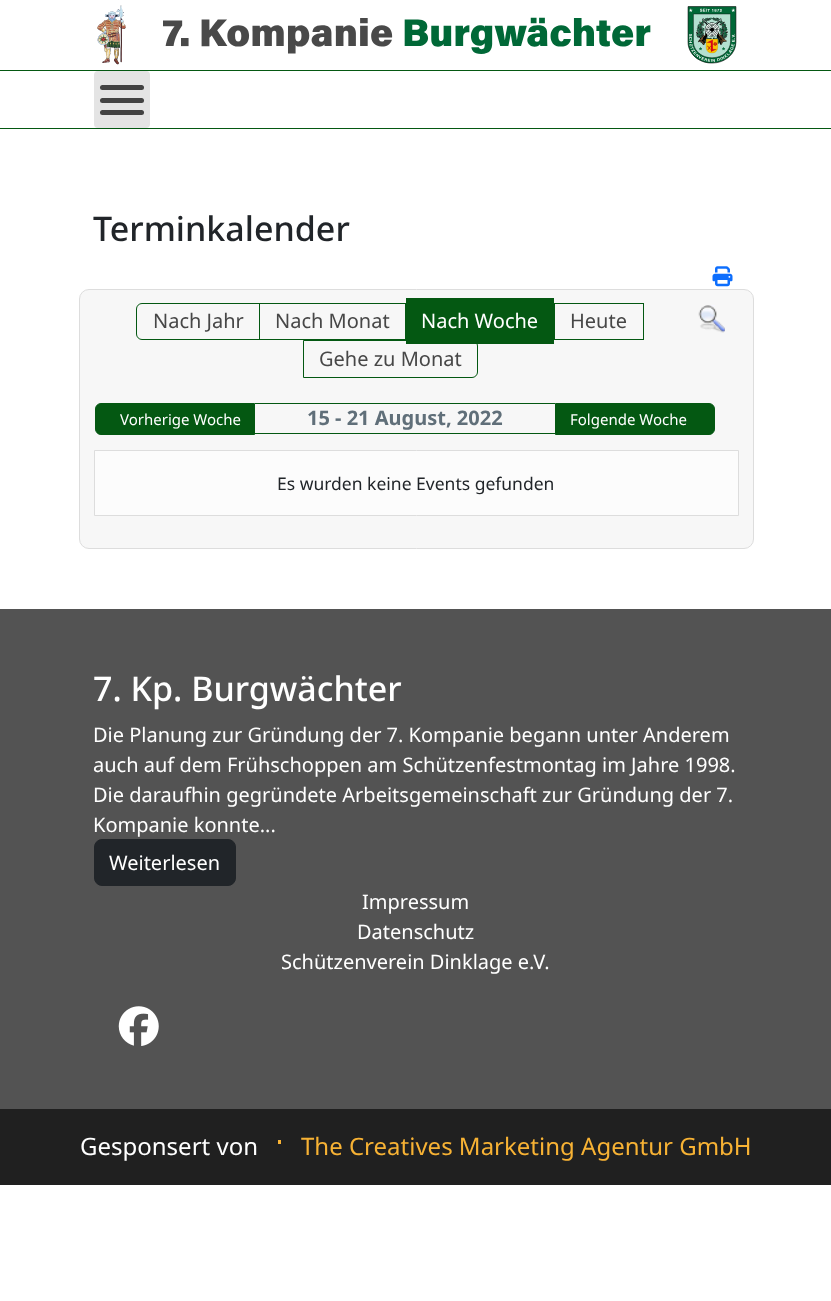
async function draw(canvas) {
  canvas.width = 831;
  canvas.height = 1301;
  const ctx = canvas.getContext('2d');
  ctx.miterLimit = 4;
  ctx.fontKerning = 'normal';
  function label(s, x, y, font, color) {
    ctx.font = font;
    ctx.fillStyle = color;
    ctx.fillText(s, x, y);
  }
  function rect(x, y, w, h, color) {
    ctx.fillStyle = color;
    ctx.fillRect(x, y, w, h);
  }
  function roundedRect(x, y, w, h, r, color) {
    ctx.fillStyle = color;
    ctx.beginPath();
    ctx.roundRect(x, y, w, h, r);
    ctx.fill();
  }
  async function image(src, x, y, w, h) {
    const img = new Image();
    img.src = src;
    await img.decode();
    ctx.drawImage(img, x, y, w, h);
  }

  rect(0, 0, 831, 1301, '#fff');
  await image('assets/img1.png', 97, 5, 640, 60);
  rect(0, 70, 831, 1, '#045812');
  rect(0, 128, 831, 1, '#045812');
  roundedRect(94, 71, 56, 57, 4, '#e4e4e4');
  roundedRect(100, 98, 44, 5, 2.5, '#434343');
  roundedRect(100, 85, 44, 5, 2.5, '#434343');
  roundedRect(100, 110, 44, 5, 2.5, '#434343');
  label('Terminkalender', 93, 241, '500 34px Noto Sans', '#212529');
  await image('assets/img2.png', 712, 266, 21, 21);
  ctx.fillStyle = '#f7f7f7';
  ctx.beginPath();
  ctx.roundRect(79.5, 289.5, 674, 259, 9.5);
  ctx.fill();
  ctx.strokeStyle = '#ddd';
  ctx.stroke();
  ctx.beginPath();
  ctx.roundRect(136.5, 303.5, 123, 36, [5.5, 0, 0, 5.5]);
  ctx.strokeStyle = '#045812';
  ctx.stroke();
  label('Nach Jahr', 153, 328, '20px Noto Sans', '#474747');
  ctx.strokeRect(259.5, 303.5, 146, 36);
  label('Nach Monat', 275, 328, '20px Noto Sans', '#474747');
  ctx.strokeRect(405.5, 303.5, 149, 36);
  rect(406, 298, 148, 46, '#045812');
  label('Nach Woche', 421, 328, '20px Noto Sans', '#fff');
  ctx.strokeRect(554.5, 303.5, 89, 36);
  label('Heute', 570, 328, '20px Noto Sans', '#474747');
  ctx.beginPath();
  ctx.roundRect(303.5, 340.5, 174, 37, [0, 5.5, 5.5, 0]);
  ctx.stroke();
  label('Gehe zu Monat', 319, 366, '20px Noto Sans', '#474747');
  await image('assets/img3.png', 698, 305, 27, 28);
  ctx.fillStyle = '#045812';
  ctx.beginPath();
  ctx.roundRect(95.5, 403.5, 159, 31, [5.5, 0, 0, 5.5]);
  ctx.fill();
  ctx.stroke();
  label('Vorherige Woche', 120, 425, '15px Noto Sans', '#fff');
  rect(255, 403, 300, 1, '#045812');
  rect(255, 433, 300, 1, '#045812');
  label('15 - 21 August, 2022', 307, 425, 'bold 20px Noto Sans', '#606f79');
  ctx.fillStyle = '#045812';
  ctx.beginPath();
  ctx.roundRect(555.5, 403.5, 159, 31, [0, 5.5, 5.5, 0]);
  ctx.fill();
  ctx.stroke();
  label('Folgende Woche', 570, 425, '15px Noto Sans', '#fff');
  ctx.fillStyle = '#fcfcfc';
  ctx.beginPath();
  ctx.rect(94.5, 450.5, 644, 65);
  ctx.fill();
  ctx.strokeStyle = '#ddd';
  ctx.stroke();
  label('Es wurden keine Events gefunden', 277, 490, '17.5px Noto Sans', '#212529');
  rect(0, 609, 831, 500, '#535353');
  label('7. Kp. Burgwächter', 93, 701, '500 34px Noto Sans', '#fff');
  label('Die Planung zur Gründung der 7. Kompanie begann unter Anderem', 93, 742, '20px Noto Sans', '#fff');
  label('auch auf dem Frühschoppen am Schützenfestmontag im Jahre 1998.', 93, 772, '20px Noto Sans', '#fff');
  label('Die daraufhin gegründete Arbeitsgemeinschaft zur Gründung der 7.', 93, 802, '20px Noto Sans', '#fff');
  label('Kompanie konnte...', 93, 832, '20px Noto Sans', '#fff');
  ctx.fillStyle = '#212529';
  ctx.beginPath();
  ctx.roundRect(94.5, 839.5, 141, 46, 7.5);
  ctx.fill();
  ctx.strokeStyle = '#212529';
  ctx.stroke();
  label('Weiterlesen', 109, 870, '20px Noto Sans', '#fff');
  label('Impressum', 362, 909, '20px Noto Sans', '#fff');
  label('Datenschutz', 357, 939, '20px Noto Sans', '#fff');
  label('Schützenverein Dinklage e.V.', 281, 969, '20px Noto Sans', '#fff');
  await image('assets/img4.png', 118, 1006, 41, 40);
  rect(0, 1109, 831, 76, '#202020');
  label('Gesponsert von', 80, 1155, '24px Noto Sans', '#fff');
  label('The Creatives Marketing Agentur GmbH', 301, 1155, '24px Noto Sans', '#f7b234');
  rect(278, 1140, 3, 4, '#f9b334');
}

draw(document.querySelector('canvas'));
